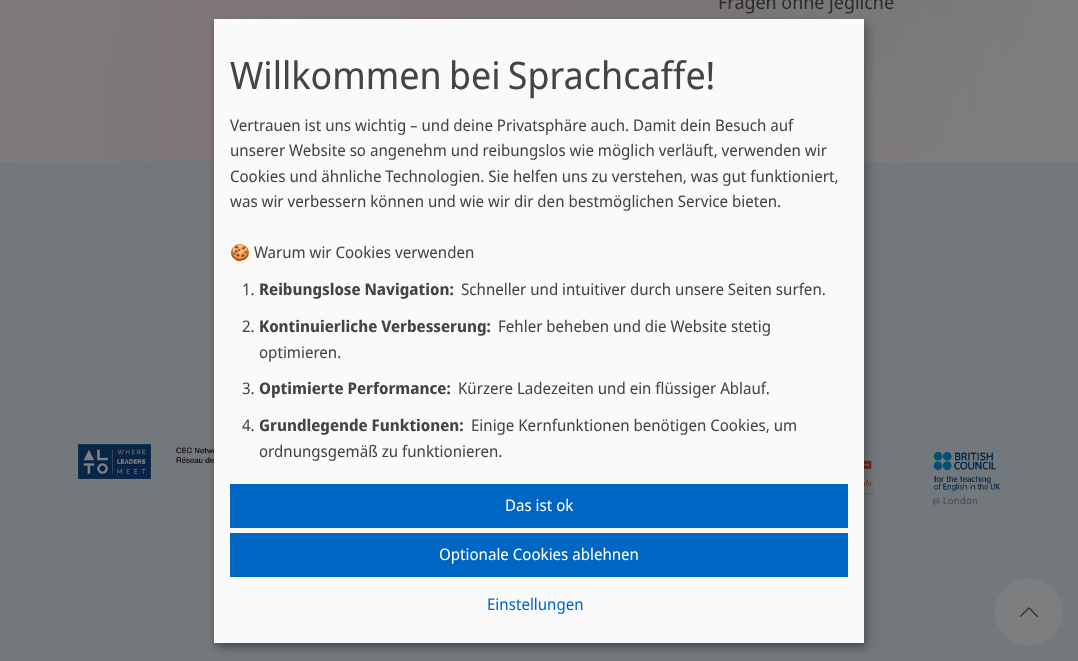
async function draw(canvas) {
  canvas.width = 1078;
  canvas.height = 661;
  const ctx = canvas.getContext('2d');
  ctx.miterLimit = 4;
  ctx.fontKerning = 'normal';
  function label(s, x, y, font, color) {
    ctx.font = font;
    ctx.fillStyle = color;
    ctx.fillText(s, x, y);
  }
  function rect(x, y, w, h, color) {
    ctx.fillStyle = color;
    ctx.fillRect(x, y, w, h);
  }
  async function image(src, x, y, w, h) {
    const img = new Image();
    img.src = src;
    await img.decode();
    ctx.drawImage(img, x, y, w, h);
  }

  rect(0, 0, 1078, 661, '#808080');
  await image('assets/img1.png', 0, 0, 1078, 162);
  label('Fragen ohne jegliche', 718, 9, '19px Noto Sans Display', '#2b2b2b');
  rect(0, 162, 1078, 499, '#73787d');
  await image('assets/img2.png', 78, 444, 922, 61);
  ctx.fillStyle = '#00000030';
  ctx.filter = 'blur(5px)';
  ctx.beginPath();
  ctx.rect(219, 24, 650, 624);
  ctx.fill();
  ctx.filter = 'none';
  ctx.fillStyle = '#00000033';
  ctx.filter = 'blur(3px)';
  ctx.beginPath();
  ctx.rect(214, 23, 650, 624);
  ctx.fill();
  ctx.filter = 'none';
  rect(214, 19, 650, 624, '#fafafa');
  ctx.wordSpacing = '-2px';
  label('Willkommen bei Sprachcaffe!', 230, 89, '38px Noto Sans Display', '#444');
  ctx.wordSpacing = '0px';
  label('Vertrauen ist uns wichtig – und deine Privatsphäre auch. Damit dein Besuch auf', 230, 131, '16px Noto Sans Display', '#444');
  label('unserer Website so angenehm und reibungslos wie möglich verläuft, verwenden wir', 230, 156, '16px Noto Sans Display', '#444');
  label('Cookies und ähnliche Technologien. Sie helfen uns zu verstehen, was gut funktioniert,', 230, 182, '16px Noto Sans Display', '#444');
  label('was wir verbessern können und wie wir dir den bestmöglichen Service bieten.', 230, 207, '16px Noto Sans Display', '#444');
  label('🍪', 230, 258, '16px Noto Color Emoji', '#444');
  label('Warum wir Cookies verwenden', 254, 258, '16px Noto Sans Display', '#444');
  label('1.', 242, 295, '16px Noto Sans Display', '#444');
  label('Reibungslose Navigation:', 259, 295, 'bold 16px Noto Sans Display', '#444');
  label('Schneller und intuitiver durch unsere Seiten surfen.', 461, 295, '16px Noto Sans Display', '#444');
  label('2.', 242, 332, '16px Noto Sans Display', '#444');
  label('Kontinuierliche Verbesserung:', 259, 332, 'bold 16px Noto Sans Display', '#444');
  label('Fehler beheben und die Website stetig', 498, 332, '16px Noto Sans Display', '#444');
  label('optimieren.', 259, 358, '16px Noto Sans Display', '#444');
  label('3.', 242, 394, '16px Noto Sans Display', '#444');
  label('Optimierte Performance:', 259, 394, 'bold 16px Noto Sans Display', '#444');
  label('Kürzere Ladezeiten und ein flüssiger Ablauf.', 458, 394, '16px Noto Sans Display', '#444');
  label('4.', 242, 431, '16px Noto Sans Display', '#444');
  label('Grundlegende Funktionen:', 259, 431, 'bold 16px Noto Sans Display', '#444');
  label('Einige Kernfunktionen benötigen Cookies, um', 471, 431, '16px Noto Sans Display', '#444');
  label('ordnungsgemäß zu funktionieren.', 259, 457, '16px Noto Sans Display', '#444');
  rect(230, 484, 618, 44, '#0066c3');
  label('Das ist ok', 505, 511, '16px Noto Sans Display', '#fff');
  rect(230, 533, 618, 44, '#0066c3');
  label('Optionale Cookies ablehnen', 439, 560, '16px Noto Sans Display', '#fff');
  label('Einstellungen', 487, 610, '16px Noto Sans Display', '#0066c3');
  ctx.fillStyle = '#808080b3';
  ctx.beginPath();
  ctx.arc(1029, 612, 34, 0, 2 * Math.PI);
  ctx.fill();
  await image('assets/img3.png', 1019, 607, 20, 10);
}

draw(document.querySelector('canvas'));
